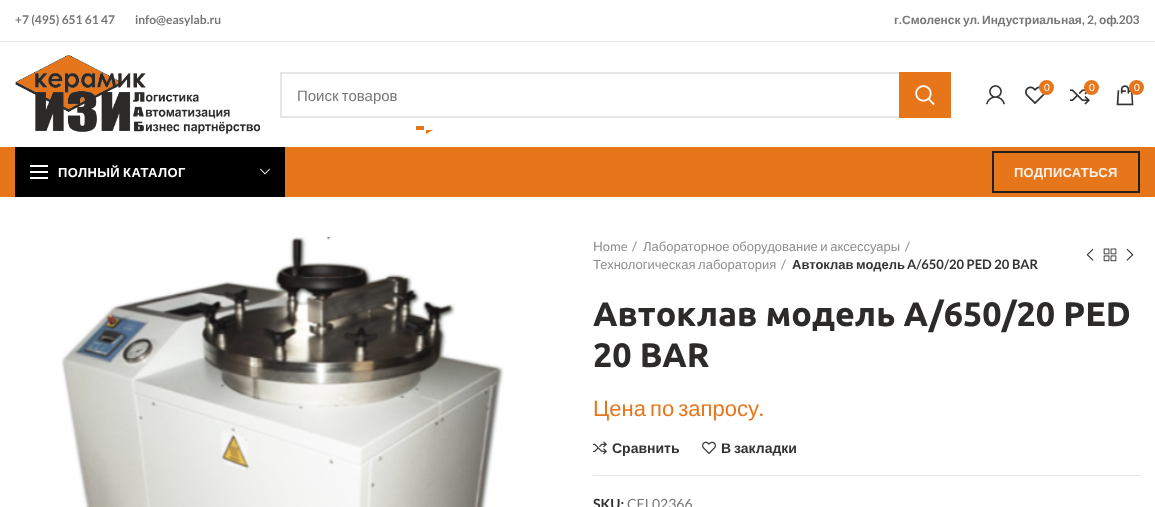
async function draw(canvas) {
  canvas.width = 1155;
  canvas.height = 507;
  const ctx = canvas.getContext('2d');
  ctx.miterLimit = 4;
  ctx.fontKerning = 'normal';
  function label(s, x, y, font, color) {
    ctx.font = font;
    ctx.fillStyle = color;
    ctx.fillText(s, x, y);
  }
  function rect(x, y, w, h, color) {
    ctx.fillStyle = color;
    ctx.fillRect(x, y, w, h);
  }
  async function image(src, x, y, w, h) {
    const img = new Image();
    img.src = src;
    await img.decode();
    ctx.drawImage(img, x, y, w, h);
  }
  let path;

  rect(0, 0, 1155, 507, '#fff');
  rect(0, 41, 1155, 1, '#e6e6e4');
  label('+7 (495) 651 61 47', 15, 24, 'bold 12px Lato', '#777');
  label('info@easylab.ru', 135, 24, 'bold 12px Lato', '#777');
  label('г', 894, 24, 'bold 12px Liberation Sans', '#777');
  label('.', 899, 24, 'bold 12px Lato', '#777');
  label('Смоленск', 902, 24, 'bold 12px Liberation Sans', '#777');
  label('ул', 963, 24, 'bold 12px Liberation Sans', '#777');
  label('.', 977, 24, 'bold 12px Lato', '#777');
  label('Индустриальная', 982, 24, 'bold 12px Liberation Sans', '#777');
  label(', 2,', 1082, 24, 'bold 12px Lato', '#777');
  label('оф', 1099, 24, 'bold 12px Liberation Sans', '#777');
  label('.203', 1116, 24, 'bold 12px Lato', '#777');
  await image('assets/img1.png', 15, 55, 245, 79);
  await image('assets/img2.png', 986, 85, 19, 20);
  await image('assets/img3.png', 1025, 86, 20, 18);
  ctx.fillStyle = '#e7761b';
  ctx.beginPath();
  ctx.arc(1046.5, 87.5, 7.5, 0, 2 * Math.PI);
  ctx.fill();
  label('0', 1044, 91, '10px Lato', '#fff');
  await image('assets/img4.png', 1070, 86, 20, 19);
  ctx.fillStyle = '#e7761b';
  ctx.beginPath();
  ctx.arc(1091.5, 87.5, 7.5, 0, 2 * Math.PI);
  ctx.fill();
  label('0', 1089, 91, '10px Lato', '#fff');
  await image('assets/img5.png', 1116, 85, 18, 21);
  ctx.fillStyle = '#e7761b';
  ctx.beginPath();
  ctx.arc(1136.5, 87.5, 7.5, 0, 2 * Math.PI);
  ctx.fill();
  label('0', 1134, 91, '10px Lato', '#fff');
  ctx.strokeStyle = '#e6e6e6';
  ctx.lineWidth = 2;
  ctx.strokeRect(281, 73, 669, 44);
  ctx.wordSpacing = '-1px';
  label('Поиск товаров', 297, 101, '15px Liberation Sans', '#777');
  rect(899, 72, 52, 46, '#e7761b');
  await image('assets/img6.png', 915, 85, 20, 21);
  rect(0, 147, 1155, 50, '#e7761b');
  rect(416, 126, 8, 4, '#e7761b');
  path = new Path2D('M426 130H433L426 134Z');
  ctx.fill(path);
  rect(15, 147, 270, 50, '#000');
  rect(30, 171, 18, 2, '#fff');
  rect(30, 165, 18, 2, '#fff');
  rect(30, 177, 18, 2, '#fff');
  ctx.letterSpacing = '0.4px';
  label('ПОЛНЫЙ КАТАЛОГ', 58, 177, 'bold 13px Liberation Sans', '#fff');
  await image('assets/img7.png', 260, 168, 10, 7);
  ctx.strokeStyle = '#212121';
  ctx.strokeRect(993, 152, 146, 40);
  ctx.letterSpacing = '0.25px';
  ctx.wordSpacing = '0px';
  label('ПОДПИСАТЬСЯ', 1014, 177, 'bold 13px Liberation Sans', '#fdf1e8');
  await image('assets/img8.png', 61, 237, 443, 270);
  ctx.letterSpacing = '0px';
  label('Home', 593, 251, '13px Lato', '#8e8e8e');
  label('/', 632, 251, '13px Lato', '#8e8e8e');
  ctx.wordSpacing = '-1px';
  label('Лабораторное оборудование и аксессуары', 643, 251, '13px Liberation Sans', '#8e8e8e');
  ctx.wordSpacing = '0px';
  label('/', 905, 251, '13px Lato', '#8e8e8e');
  ctx.wordSpacing = '-1px';
  label('Технологическая лаборатория', 593, 269, '13px Liberation Sans', '#8e8e8e');
  ctx.wordSpacing = '0px';
  label('/', 781, 269, '13px Lato', '#8e8e8e');
  label('Автоклав', 792, 269, 'bold 13px Liberation Sans', '#333');
  label('модель', 856, 269, 'bold 13px Liberation Sans', '#333');
  label('A/650/20 PED 20 BAR', 907, 269, 'bold 13px Lato', '#333');
  await image('assets/img9.png', 1086, 248, 8, 13);
  await image('assets/img10.png', 1103, 248, 14, 14);
  await image('assets/img11.png', 1126, 248, 8, 13);
  label('Автоклав модель A/650/20 PED', 593, 326, 'bold 34px Ubuntu', '#2d2a2a');
  label('20 BAR', 593, 367, 'bold 34px Ubuntu', '#2d2a2a');
  ctx.wordSpacing = '-2px';
  label('Цена по запросу', 593, 416, '22px Liberation Sans', '#e7761b');
  ctx.wordSpacing = '0px';
  label('.', 759, 416, '22px Lato', '#e7761b');
  await image('assets/img12.png', 593, 441, 14, 14);
  label('Сравнить', 612, 453, 'bold 14px Liberation Sans', '#333');
  await image('assets/img13.png', 702, 441, 14, 13);
  ctx.wordSpacing = '-1px';
  label('В закладки', 721, 453, 'bold 14px Liberation Sans', '#333');
  rect(593, 475, 547, 1, '#e6e6e6');
  ctx.wordSpacing = '0px';
  label('SKU:', 593, 509, 'bold 14px Lato', '#333');
  label('CEL02366', 627, 509, '14px Lato', '#777');
}

draw(document.querySelector('canvas'));
